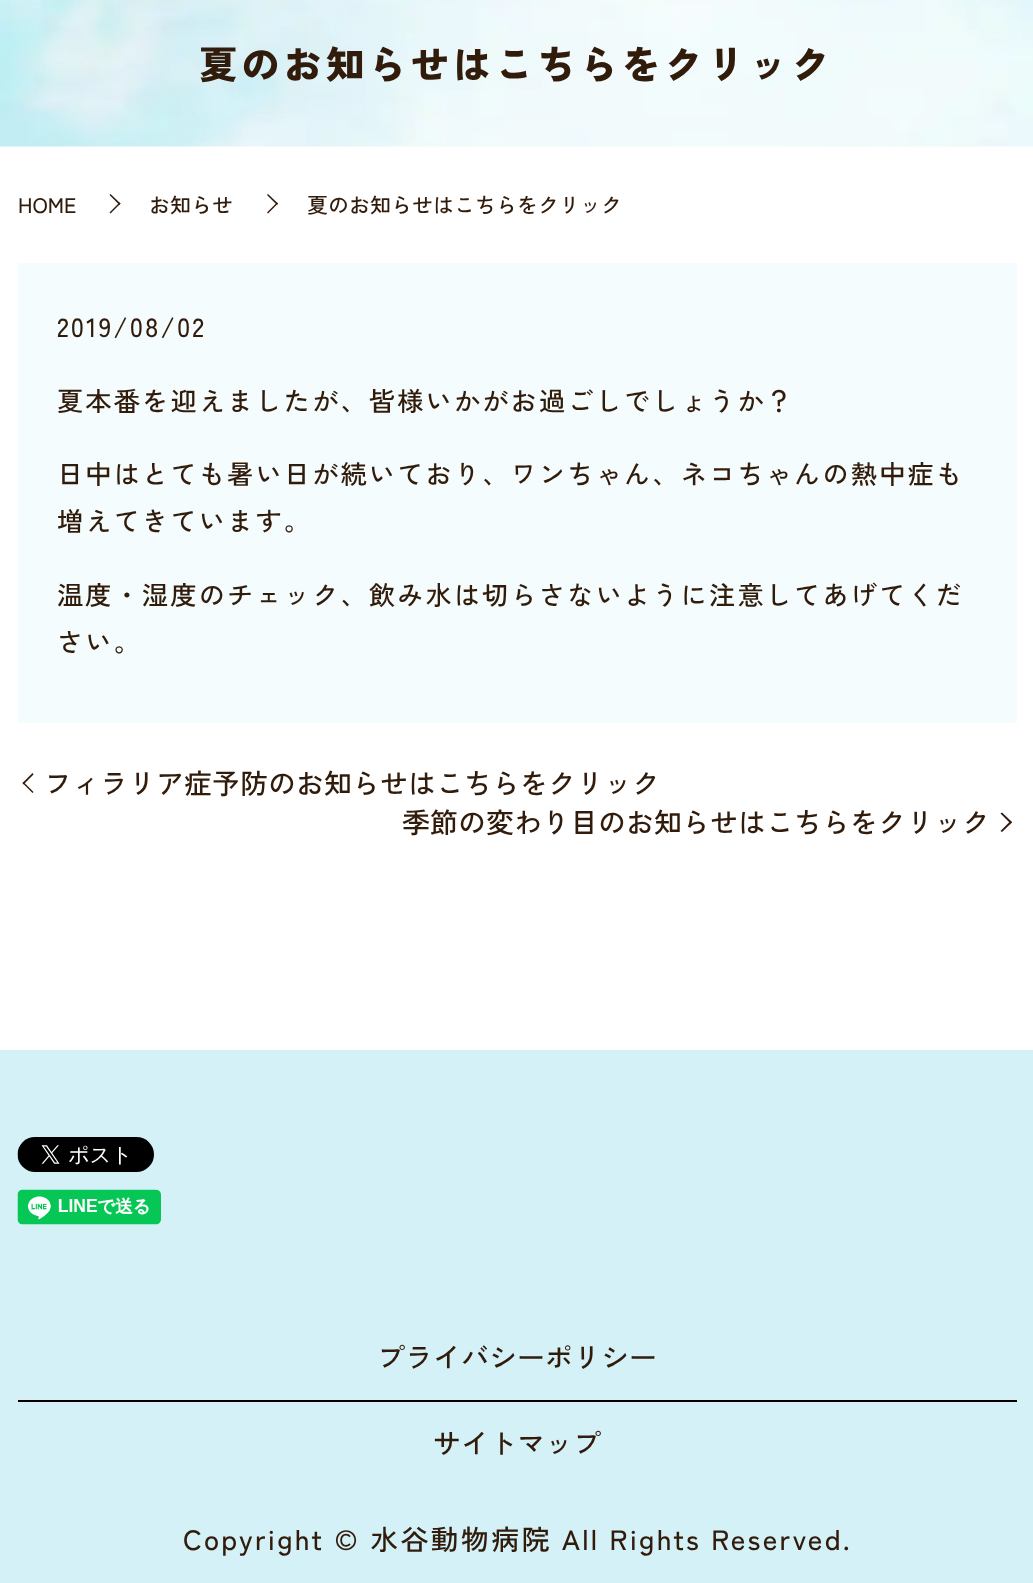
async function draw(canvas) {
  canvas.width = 1033;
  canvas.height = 1583;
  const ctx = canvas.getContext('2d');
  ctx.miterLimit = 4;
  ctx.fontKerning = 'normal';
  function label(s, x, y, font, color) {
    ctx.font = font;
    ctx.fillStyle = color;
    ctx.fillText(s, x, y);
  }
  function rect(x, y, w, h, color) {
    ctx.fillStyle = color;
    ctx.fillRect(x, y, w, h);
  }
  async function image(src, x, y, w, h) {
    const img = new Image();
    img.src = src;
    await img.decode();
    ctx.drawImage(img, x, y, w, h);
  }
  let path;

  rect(0, 0, 1033, 1583, '#fff');
  await image('assets/img1.png', 0, 0, 1033, 147);
  ctx.letterSpacing = '3.8px';
  label('夏のお知らせはこちらをクリック', 199, 79, '900 38.5px Zen Kaku Gothic New', '#311b0b');
  ctx.letterSpacing = '0px';
  label('HOME', 18, 213, '500 21px Zen Kaku Gothic New', '#311b0b');
  path = new Path2D('M110.5 194L120.5 203.5L119.5 205L109.5 195Z');
  ctx.fill(path);
  path = new Path2D('M119.5 202.5L120.5 203.5L110.5 213.5L109.5 212.5Z');
  ctx.fill(path);
  label('お知らせ', 149, 213, '500 21px Zen Kaku Gothic New', '#311b0b');
  path = new Path2D('M268 194L278 203.5L277 205L267 195Z');
  ctx.fill(path);
  path = new Path2D('M277 202.5L278 203.5L268 213.5L267 212.5Z');
  ctx.fill(path);
  label('夏のお知らせはこちらをクリック', 307, 213, '500 21px Zen Kaku Gothic New', '#311b0b');
  rect(18, 263, 999, 460, '#f4fcfd');
  ctx.letterSpacing = '2.1px';
  label('2019/08/02', 57, 337, '500 26.25px Zen Kaku Gothic New', '#311b0b');
  label('夏本番を迎えましたが、皆様いかがお過ごしでしょうか？', 57, 411, '500 26.25px Zen Kaku Gothic New', '#311b0b');
  label('日中はとても暑い日が続いており、ワンちゃん、ネコちゃんの熱中症も', 57, 484, '500 26.25px Zen Kaku Gothic New', '#311b0b');
  label('増えてきています。', 57, 531, '500 26.25px Zen Kaku Gothic New', '#311b0b');
  label('温度・湿度のチェック、飲み水は切らさないように注意してあげてくだ', 57, 605, '500 26.25px Zen Kaku Gothic New', '#311b0b');
  label('さい。', 57, 652, '500 26.25px Zen Kaku Gothic New', '#311b0b');
  path = new Path2D('M22.5 783L32.5 773L33.5 774.5L23.5 784.5Z');
  ctx.fill(path);
  ctx.letterSpacing = '0px';
  label('フィラリア症予防のお知らせはこちらをクリック', 44, 794, '500 28px Zen Kaku Gothic New', '#311b0b');
  path = new Path2D('M32.5 793L22.5 783L23.5 782L33.5 792Z');
  ctx.fill(path);
  label('季節の変わり目のお知らせはこちらをクリック', 402, 833, '500 28px Zen Kaku Gothic New', '#311b0b');
  path = new Path2D('M1002 812.5L1012 822L1010.5 823.5L1000.5 813.5Z');
  ctx.fill(path);
  path = new Path2D('M1012 822.5L1002 832L1000.5 831L1010.5 821Z');
  ctx.fill(path);
  rect(0, 1050, 1033, 533, '#d3f1f7');
  await image('assets/img2.png', 17, 1137, 137, 35);
  await image('assets/img3.png', 17, 1189, 144, 36);
  label('プライバシーポリシー', 377, 1368, '500 28px Zen Kaku Gothic New', '#311b0b');
  rect(18, 1400, 999, 2, '#000');
  label('サイトマップ', 433, 1454, '500 28px Zen Kaku Gothic New', '#311b0b');
  ctx.letterSpacing = '2.25px';
  label('Copyright © 水谷動物病院 All Rights Reserved.', 183, 1550, '500 28px Zen Kaku Gothic New', '#311b0b');
}

draw(document.querySelector('canvas'));
